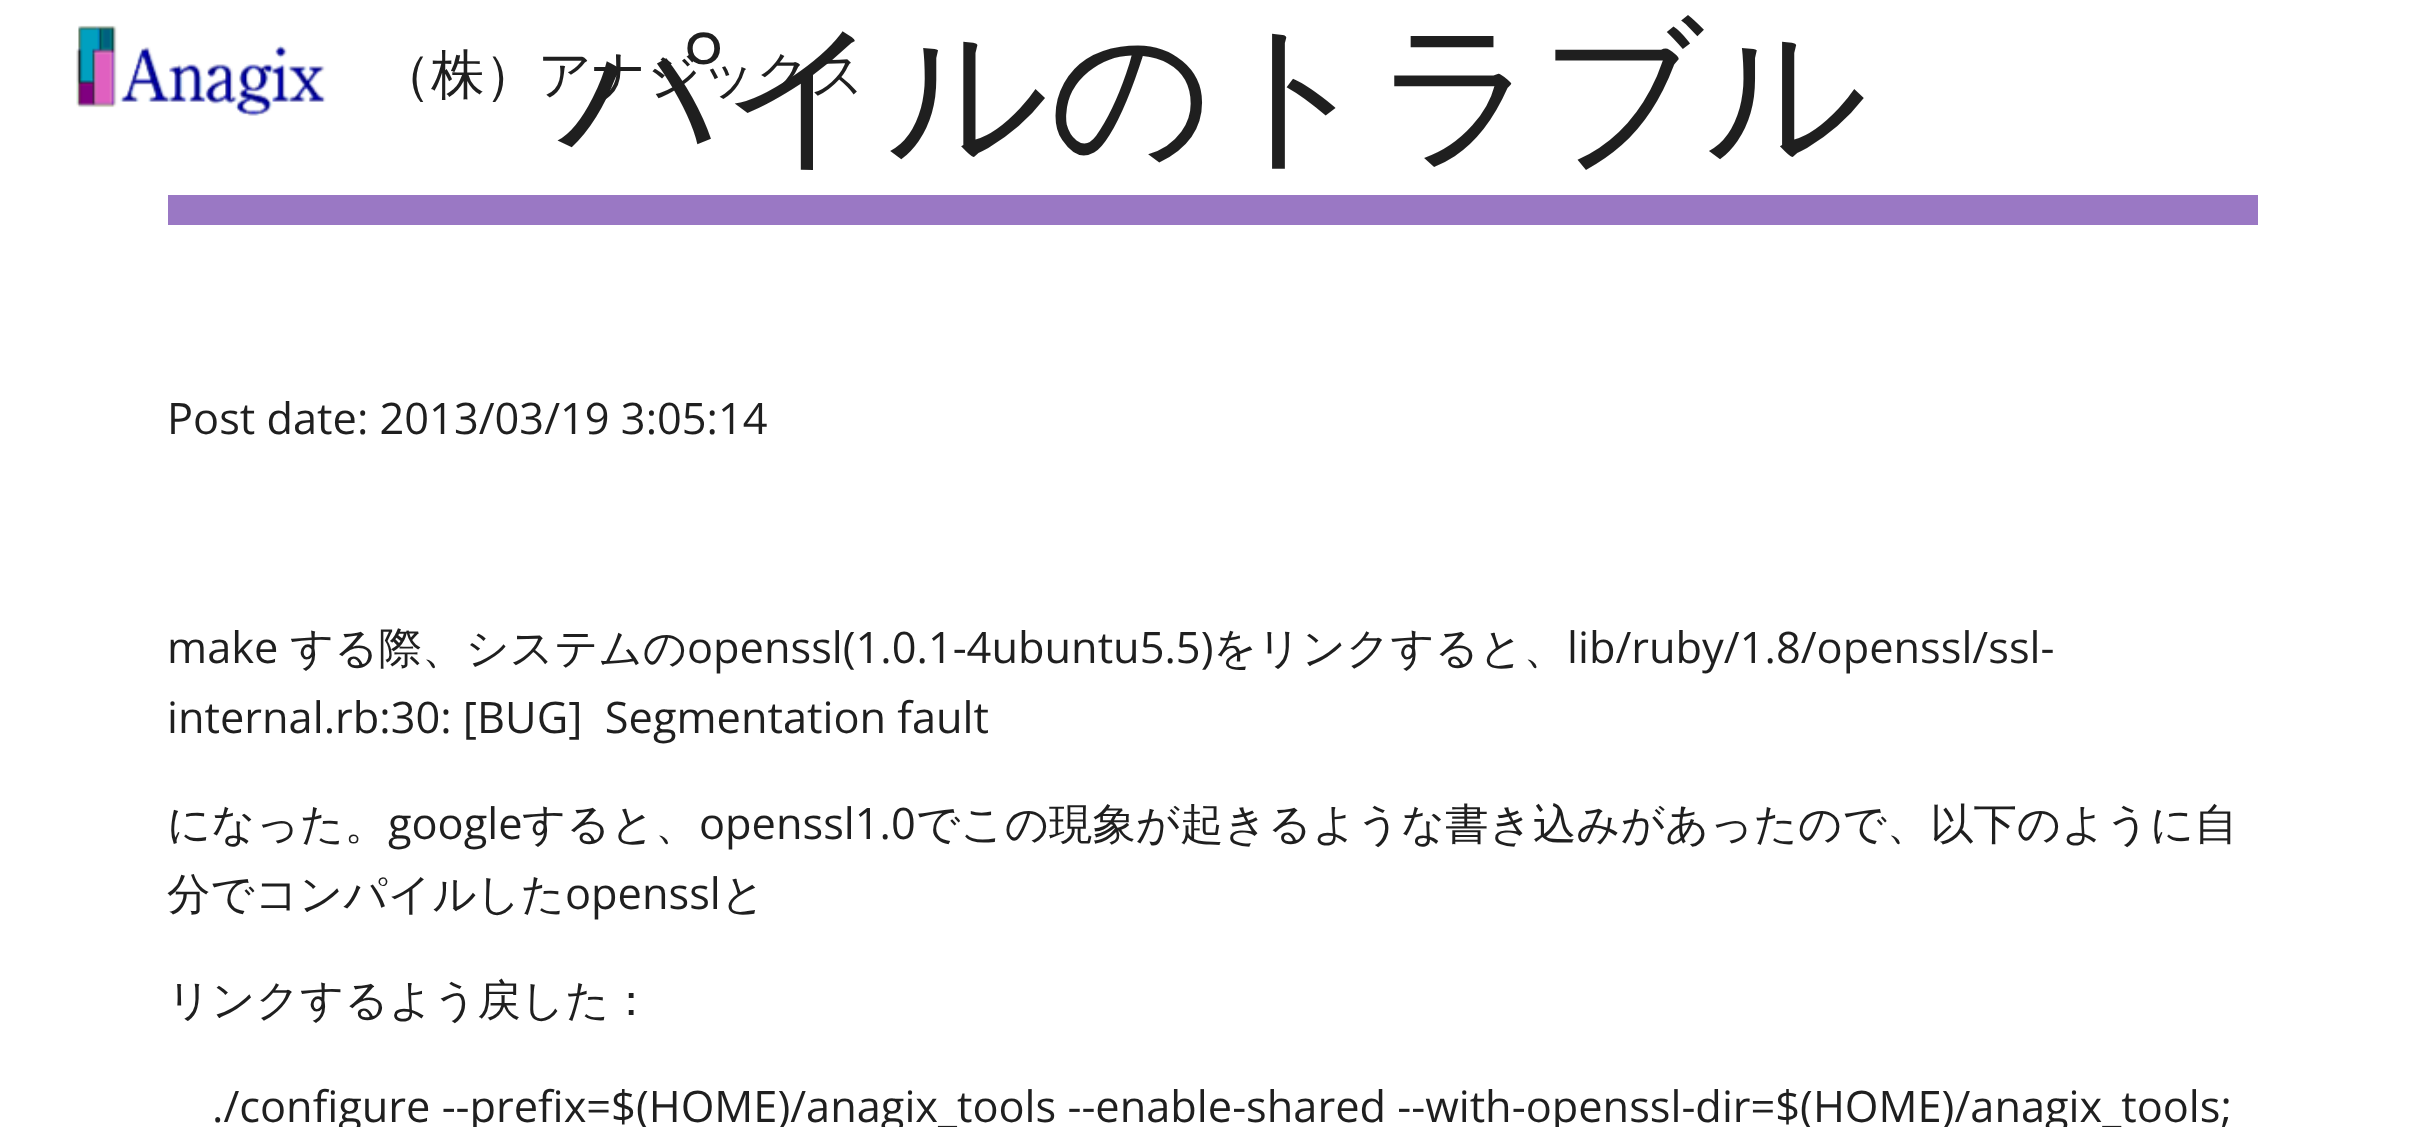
async function draw(canvas) {
  canvas.width = 2424;
  canvas.height = 1127;
  const ctx = canvas.getContext('2d');
  ctx.miterLimit = 4;
  ctx.fontKerning = 'normal';
  function label(s, x, y, font, color) {
    ctx.font = font;
    ctx.fillStyle = color;
    ctx.fillText(s, x, y);
  }
  function rect(x, y, w, h, color) {
    ctx.fillStyle = color;
    ctx.fillRect(x, y, w, h);
  }
  async function image(src, x, y, w, h) {
    const img = new Image();
    img.src = src;
    await img.decode();
    ctx.drawImage(img, x, y, w, h);
  }

  rect(0, 0, 2424, 1127, '#fff');
  label('パイルのトラブル', 558, 149, '500 160px WenQuanYi Zen Hei', '#1f1f1f');
  rect(168, 195, 2090, 30, '#9a78c4');
  label('Post date: 2013/03/19 3:05:14', 167, 434, '43.35px Open Sans', '#1f1f1f');
  label('make', 167, 663, '43.35px Open Sans', '#1f1f1f');
  label('する際、システムの', 290, 663, '500 43.35px WenQuanYi Zen Hei', '#1f1f1f');
  label('openssl(1.0.1-4ubuntu5.5)', 687, 663, '43.35px Open Sans', '#1f1f1f');
  label('をリンクすると、', 1213, 663, '500 43.35px WenQuanYi Zen Hei', '#1f1f1f');
  label('lib/ruby/1.8/openssl/ssl-', 1567, 663, '43.35px Open Sans', '#1f1f1f');
  label('internal.rb:30: [BUG]  Segmentation fault', 167, 733, '43.35px Open Sans', '#1f1f1f');
  label('になった。', 167, 839, '500 43.35px WenQuanYi Zen Hei', '#1f1f1f');
  label('google', 388, 839, '43.35px Open Sans', '#1f1f1f');
  label('すると、', 522, 839, '500 43.35px WenQuanYi Zen Hei', '#1f1f1f');
  label('openssl1.0', 699, 839, '43.35px Open Sans', '#1f1f1f');
  label('でこの現象が起きるような書き込みがあったので、以下のように自', 916, 839, '500 43.35px WenQuanYi Zen Hei', '#1f1f1f');
  label('分でコンパイルした', 167, 909, '500 43.35px WenQuanYi Zen Hei', '#1f1f1f');
  label('openssl', 565, 909, '43.35px Open Sans', '#1f1f1f');
  label('と', 721, 909, '500 43.35px WenQuanYi Zen Hei', '#1f1f1f');
  label('リンクするよう戻した：', 167, 1015, '500 43.35px WenQuanYi Zen Hei', '#1f1f1f');
  label('./configure --prefix=$(HOME)/anagix_tools --enable-shared --with-openssl-dir=$(HOME)/anagix_tools;', 212, 1122, '43.35px Open Sans', '#1f1f1f');
  await image('assets/img1.png', 76, 25, 250, 91);
  label('（株）アナジックス', 378, 93, '500 53.25px WenQuanYi Zen Hei', '#1f1f1f');
}

draw(document.querySelector('canvas'));
